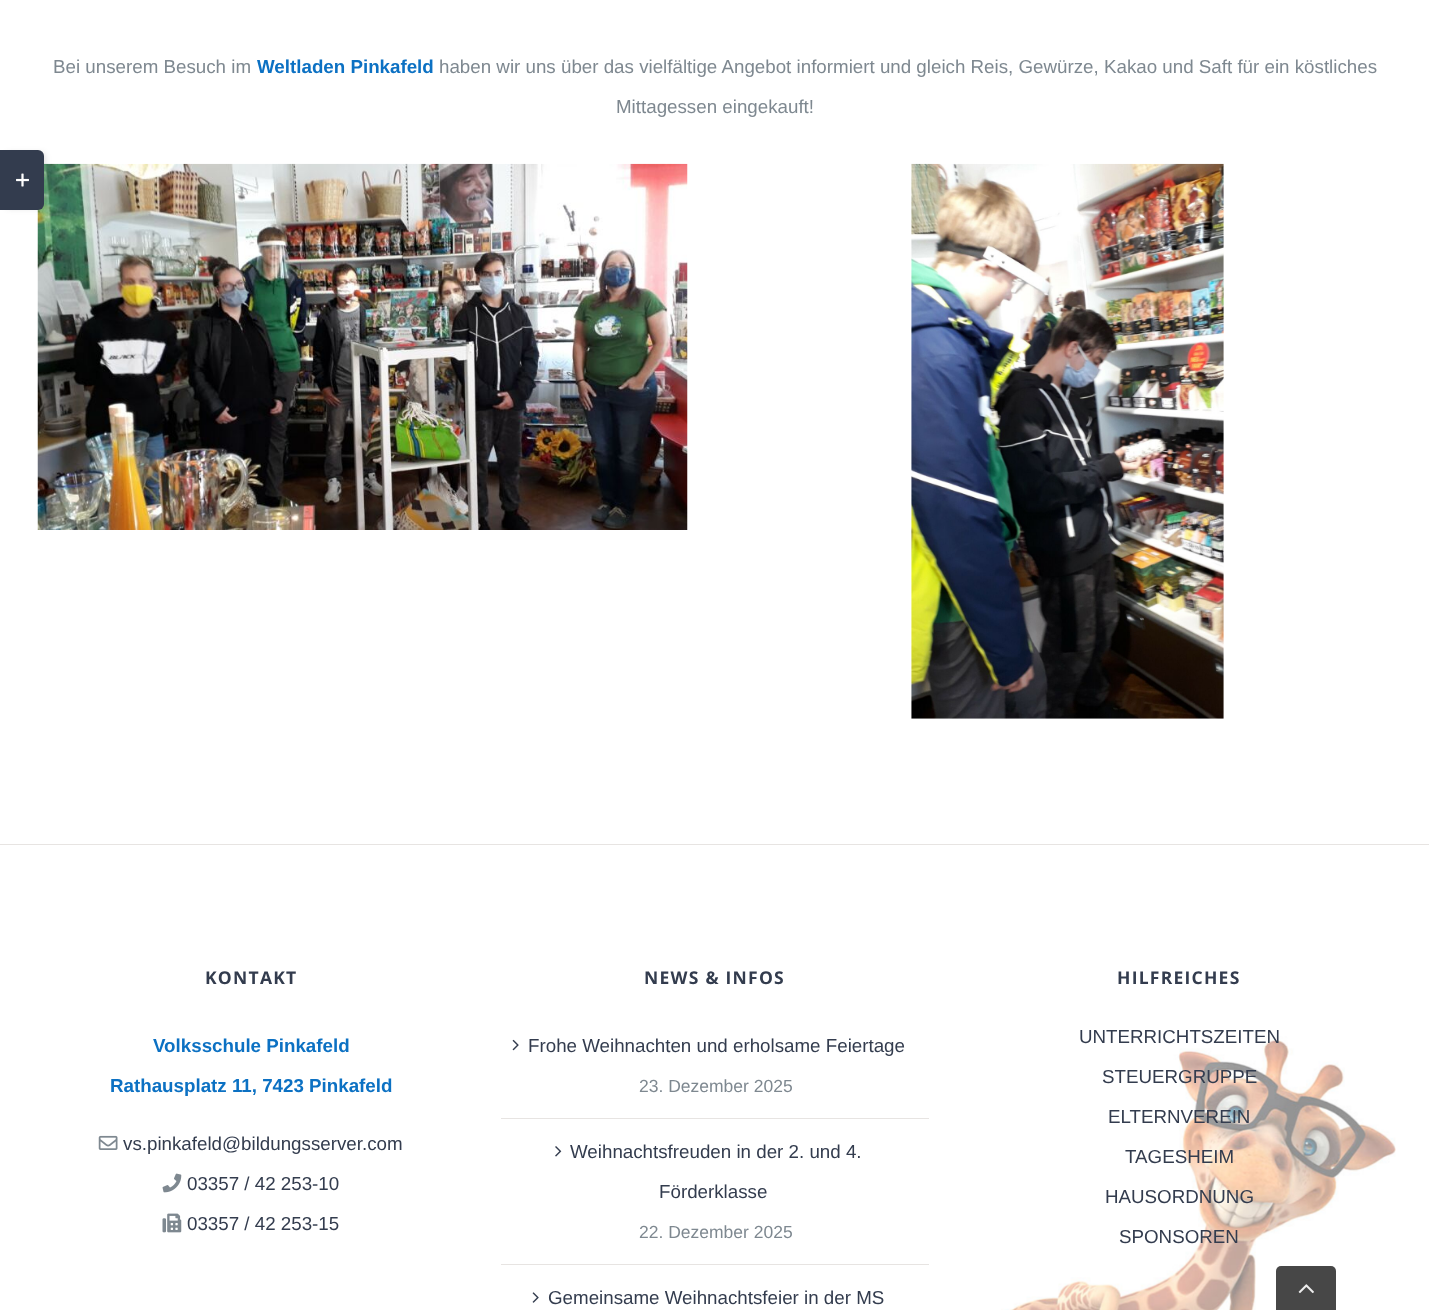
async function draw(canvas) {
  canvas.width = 1429;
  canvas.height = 1310;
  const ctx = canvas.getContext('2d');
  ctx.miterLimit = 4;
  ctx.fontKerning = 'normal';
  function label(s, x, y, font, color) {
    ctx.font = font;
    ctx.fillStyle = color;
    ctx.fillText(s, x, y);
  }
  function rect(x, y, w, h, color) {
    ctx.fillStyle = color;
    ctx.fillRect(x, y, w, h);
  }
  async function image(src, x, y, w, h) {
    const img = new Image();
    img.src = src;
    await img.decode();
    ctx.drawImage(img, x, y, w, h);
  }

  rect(0, 0, 1429, 1310, '#fff');
  label('Bei unserem Besuch im', 53, 73, '18.75px Liberation Sans', '#7e8890');
  label('Weltladen Pinkafeld', 257, 73, 'bold 18.75px Liberation Sans', '#0c71c3');
  label('haben wir uns über das vielfältige Angebot informiert und gleich Reis, Gewürze, Kakao und Saft für ein köstliches', 439, 73, '18.75px Liberation Sans', '#7e8890');
  label('Mittagessen eingekauft!', 616, 113, '18.75px Liberation Sans', '#7e8890');
  await image('assets/img1.png', 37, 163, 651, 367);
  await image('assets/img2.png', 911, 163, 313, 556);
  ctx.fillStyle = '#00000024';
  ctx.filter = 'blur(3px)';
  ctx.beginPath();
  ctx.roundRect(6, 153, 39, 55, 4);
  ctx.fill();
  ctx.filter = 'none';
  ctx.fillStyle = '#333c4e';
  ctx.beginPath();
  ctx.roundRect(0, 150, 44, 60, [0, 6, 6, 0]);
  ctx.fill();
  await image('assets/img3.png', 16, 173, 13, 14);
  await image('assets/img4.png', 1001, 1036, 395, 274);
  rect(0, 844, 1429, 1, '#e7e4e2');
  ctx.letterSpacing = '1.25px';
  label('KONTAKT', 205, 984, 'bold 17.5px Open Sans', '#333c4e');
  ctx.letterSpacing = '0px';
  label('Volksschule Pinkafeld', 153, 1052, 'bold 18.75px Liberation Sans', '#0c71c3');
  label('Rathausplatz 11, 7423 Pinkafeld', 110, 1092, 'bold 18.75px Liberation Sans', '#0c71c3');
  await image('assets/img5.png', 98, 1135, 20, 15);
  label('vs.pinkafeld@bildungsserver.com', 123, 1150, '18.75px Liberation Sans', '#333c4e');
  await image('assets/img6.png', 162, 1173, 20, 20);
  label('03357 / 42 253-10', 187, 1190, '18.75px Liberation Sans', '#333c4e');
  await image('assets/img7.png', 162, 1213, 20, 20);
  label('03357 / 42 253-15', 187, 1230, '18.75px Liberation Sans', '#333c4e');
  ctx.letterSpacing = '1.25px';
  label('NEWS & INFOS', 644, 984, 'bold 17.5px Open Sans', '#333c4e');
  rect(501, 1118, 428, 1, '#e7e4e2');
  await image('assets/img8.png', 512, 1039, 7, 12);
  ctx.letterSpacing = '0px';
  label('Frohe Weihnachten und erholsame Feiertage', 528, 1052, '18.75px Liberation Sans', '#333c4e');
  label('23. Dezember 2025', 639, 1092, '17.5px Liberation Sans', '#7e8890');
  rect(501, 1264, 428, 1, '#e7e4e2');
  await image('assets/img9.png', 555, 1146, 7, 11);
  label('Weihnachtsfreuden in der 2. und 4.', 570, 1158, '18.75px Liberation Sans', '#333c4e');
  label('Förderklasse', 659, 1198, '18.75px Liberation Sans', '#333c4e');
  label('22. Dezember 2025', 639, 1238, '17.5px Liberation Sans', '#7e8890');
  await image('assets/img10.png', 532, 1292, 7, 11);
  label('Gemeinsame Weihnachtsfeier in der MS', 548, 1304, '18.75px Liberation Sans', '#333c4e');
  ctx.letterSpacing = '1.25px';
  label('HILFREICHES', 1117, 984, 'bold 17.5px Open Sans', '#333c4e');
  ctx.letterSpacing = '0px';
  label('UNTERRICHTSZEITEN', 1079, 1043, '18.75px Liberation Sans', '#333c4e');
  label('STEUERGRUPPE', 1102, 1083, '18.75px Liberation Sans', '#333c4e');
  label('ELTERNVEREIN', 1108, 1123, '18.75px Liberation Sans', '#333c4e');
  label('TAGESHEIM', 1125, 1163, '18.75px Liberation Sans', '#333c4e');
  label('HAUSORDNUNG', 1105, 1203, '18.75px Liberation Sans', '#333c4e');
  label('SPONSOREN', 1119, 1243, '18.75px Liberation Sans', '#333c4e');
  ctx.fillStyle = '#474747';
  ctx.beginPath();
  ctx.roundRect(1276, 1266, 60, 44, [5, 5, 0, 0]);
  ctx.fill();
  await image('assets/img11.png', 1298, 1284, 16, 10);
}

draw(document.querySelector('canvas'));
